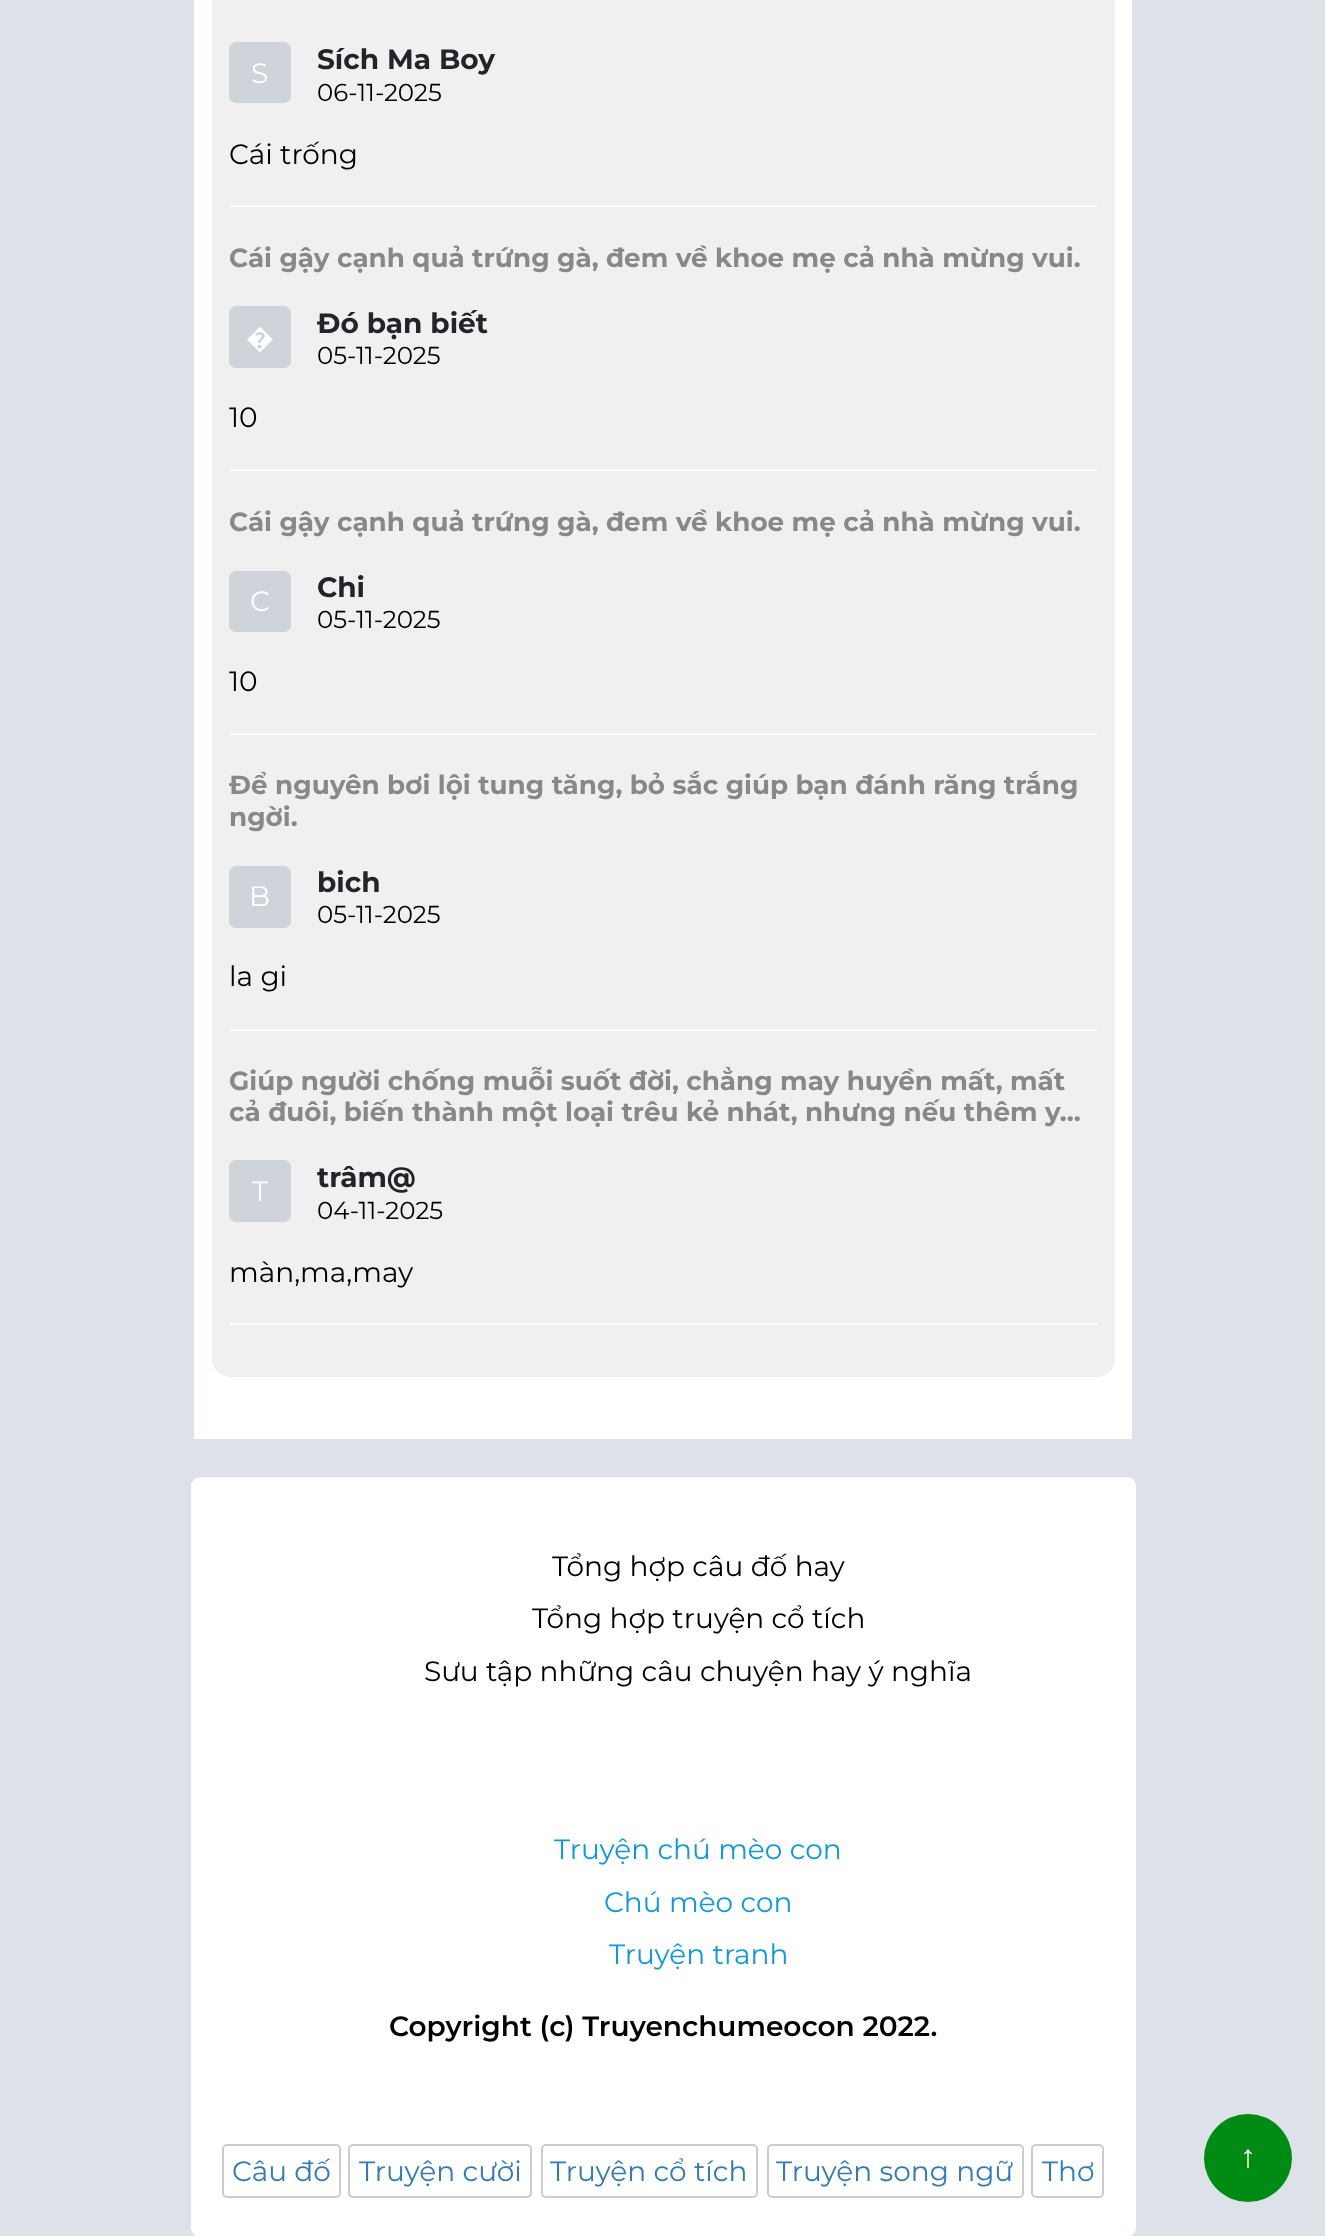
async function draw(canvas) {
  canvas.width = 1325;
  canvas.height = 2236;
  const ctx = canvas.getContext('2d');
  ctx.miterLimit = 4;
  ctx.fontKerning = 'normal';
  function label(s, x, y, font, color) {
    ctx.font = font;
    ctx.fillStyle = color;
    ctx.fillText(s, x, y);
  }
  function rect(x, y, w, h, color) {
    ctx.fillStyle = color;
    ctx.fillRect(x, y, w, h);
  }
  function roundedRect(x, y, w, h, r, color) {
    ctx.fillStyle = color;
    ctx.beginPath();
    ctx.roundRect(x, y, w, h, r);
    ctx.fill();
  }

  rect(0, 0, 1325, 2236, '#dde2e8');
  rect(194, 0, 938, 1439, '#fff');
  roundedRect(212, -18, 903, 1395, 18, '#f0f0f0');
  roundedRect(229, 42, 62, 61, 7, '#ced4da');
  label('S', 251, 83, '28px Montserrat', '#fff');
  label('Sích Ma Boy', 317, 69, 'bold 28px Montserrat', '#212529');
  label('06-11-2025', 317, 101, '24.5px Montserrat', '#000');
  label('Cái trống', 229, 164, '28px Montserrat', '#000');
  rect(229, 205, 868, 2, '#f9fafb');
  label('Cái gậy cạnh quả trứng gà, đem về khoe mẹ cả nhà mừng vui.', 229, 267, 'bold 26.25px Montserrat', '#888');
  roundedRect(229, 306, 62, 62, 7, '#ced4da');
  label('�', 246, 348, '28px Noto Sans', '#fff');
  label('Đó bạn biết', 317, 333, 'bold 28px Montserrat', '#212529');
  label('05-11-2025', 317, 364, '24.5px Montserrat', '#000');
  label('10', 229, 427, '28px Montserrat', '#000');
  rect(229, 469, 868, 2, '#f9fafb');
  label('Cái gậy cạnh quả trứng gà, đem về khoe mẹ cả nhà mừng vui.', 229, 531, 'bold 26.25px Montserrat', '#888');
  roundedRect(229, 571, 62, 61, 7, '#ced4da');
  label('C', 250, 611, '28px Montserrat', '#fff');
  label('Chi', 317, 597, 'bold 28px Montserrat', '#212529');
  label('05-11-2025', 317, 628, '24.5px Montserrat', '#000');
  label('10', 229, 691, '28px Montserrat', '#000');
  rect(229, 733, 868, 2, '#f9fafb');
  label('Để nguyên bơi lội tung tăng, bỏ sắc giúp bạn đánh răng trắng', 229, 794, 'bold 26.25px Montserrat', '#888');
  label('ngời.', 229, 826, 'bold 26.25px Montserrat', '#888');
  roundedRect(229, 866, 62, 62, 7, '#ced4da');
  label('B', 249, 906, '28px Montserrat', '#fff');
  label('bich', 317, 892, 'bold 28px Montserrat', '#212529');
  label('05-11-2025', 317, 923, '24.5px Montserrat', '#000');
  label('la gi', 229, 986, '28px Montserrat', '#000');
  rect(229, 1029, 868, 2, '#f9fafb');
  label('Giúp người chống muỗi suốt đời, chẳng may huyền mất, mất', 229, 1090, 'bold 26.25px Montserrat', '#888');
  label('cả đuôi, biến thành một loại trêu kẻ nhát, nhưng nếu thêm y…', 229, 1121, 'bold 26.25px Montserrat', '#888');
  roundedRect(229, 1160, 62, 62, 7, '#ced4da');
  label('T', 252, 1201, '28px Montserrat', '#fff');
  label('trâm@', 317, 1187, 'bold 28px Montserrat', '#212529');
  label('04-11-2025', 317, 1219, '24.5px Montserrat', '#000');
  label('màn,ma,may', 229, 1282, '28px Montserrat', '#000');
  rect(229, 1323, 868, 2, '#f9fafb');
  roundedRect(191, 1477, 945, 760, 9, '#fff');
  label('Tổng hợp câu đố hay', 552, 1576, '28px Montserrat', '#000');
  label('Tổng hợp truyện cổ tích', 532, 1628, '28px Montserrat', '#000');
  label('Sưu tập những câu chuyện hay ý nghĩa', 424, 1681, '28px Montserrat', '#000');
  label('Truyện chú mèo con', 554, 1859, '28px Montserrat', '#1299da');
  label('Chú mèo con', 604, 1912, '28px Montserrat', '#1299da');
  label('Truyện tranh', 609, 1964, '28px Montserrat', '#1299da');
  label('Copyright (c) Truyenchumeocon 2022.', 389, 2036, '600 28px Montserrat', '#000');
  ctx.beginPath();
  ctx.roundRect(223, 2145, 117, 52, 4);
  ctx.strokeStyle = '#ccc';
  ctx.lineWidth = 2;
  ctx.stroke();
  label('Câu đố', 232, 2181, '28px Montserrat', '#337ab7');
  ctx.beginPath();
  ctx.roundRect(349, 2145, 182, 52, 4);
  ctx.stroke();
  label('Truyện cười', 359, 2181, '28px Montserrat', '#337ab7');
  ctx.beginPath();
  ctx.roundRect(542, 2145, 215, 52, 4);
  ctx.stroke();
  label('Truyện cổ tích', 550, 2181, '28px Montserrat', '#337ab7');
  ctx.beginPath();
  ctx.roundRect(768, 2145, 255, 52, 4);
  ctx.stroke();
  label('Truyện song ngữ', 776, 2181, '28px Montserrat', '#337ab7');
  ctx.beginPath();
  ctx.roundRect(1032, 2145, 71, 52, 4);
  ctx.stroke();
  label('Thơ', 1042, 2181, '28px Montserrat', '#337ab7');
  ctx.fillStyle = '#008b15';
  ctx.beginPath();
  ctx.arc(1248, 2158, 44, 0, 2 * Math.PI);
  ctx.fill();
  label('↑', 1240, 2167, '32px Liberation Sans', '#fff');
}

draw(document.querySelector('canvas'));
